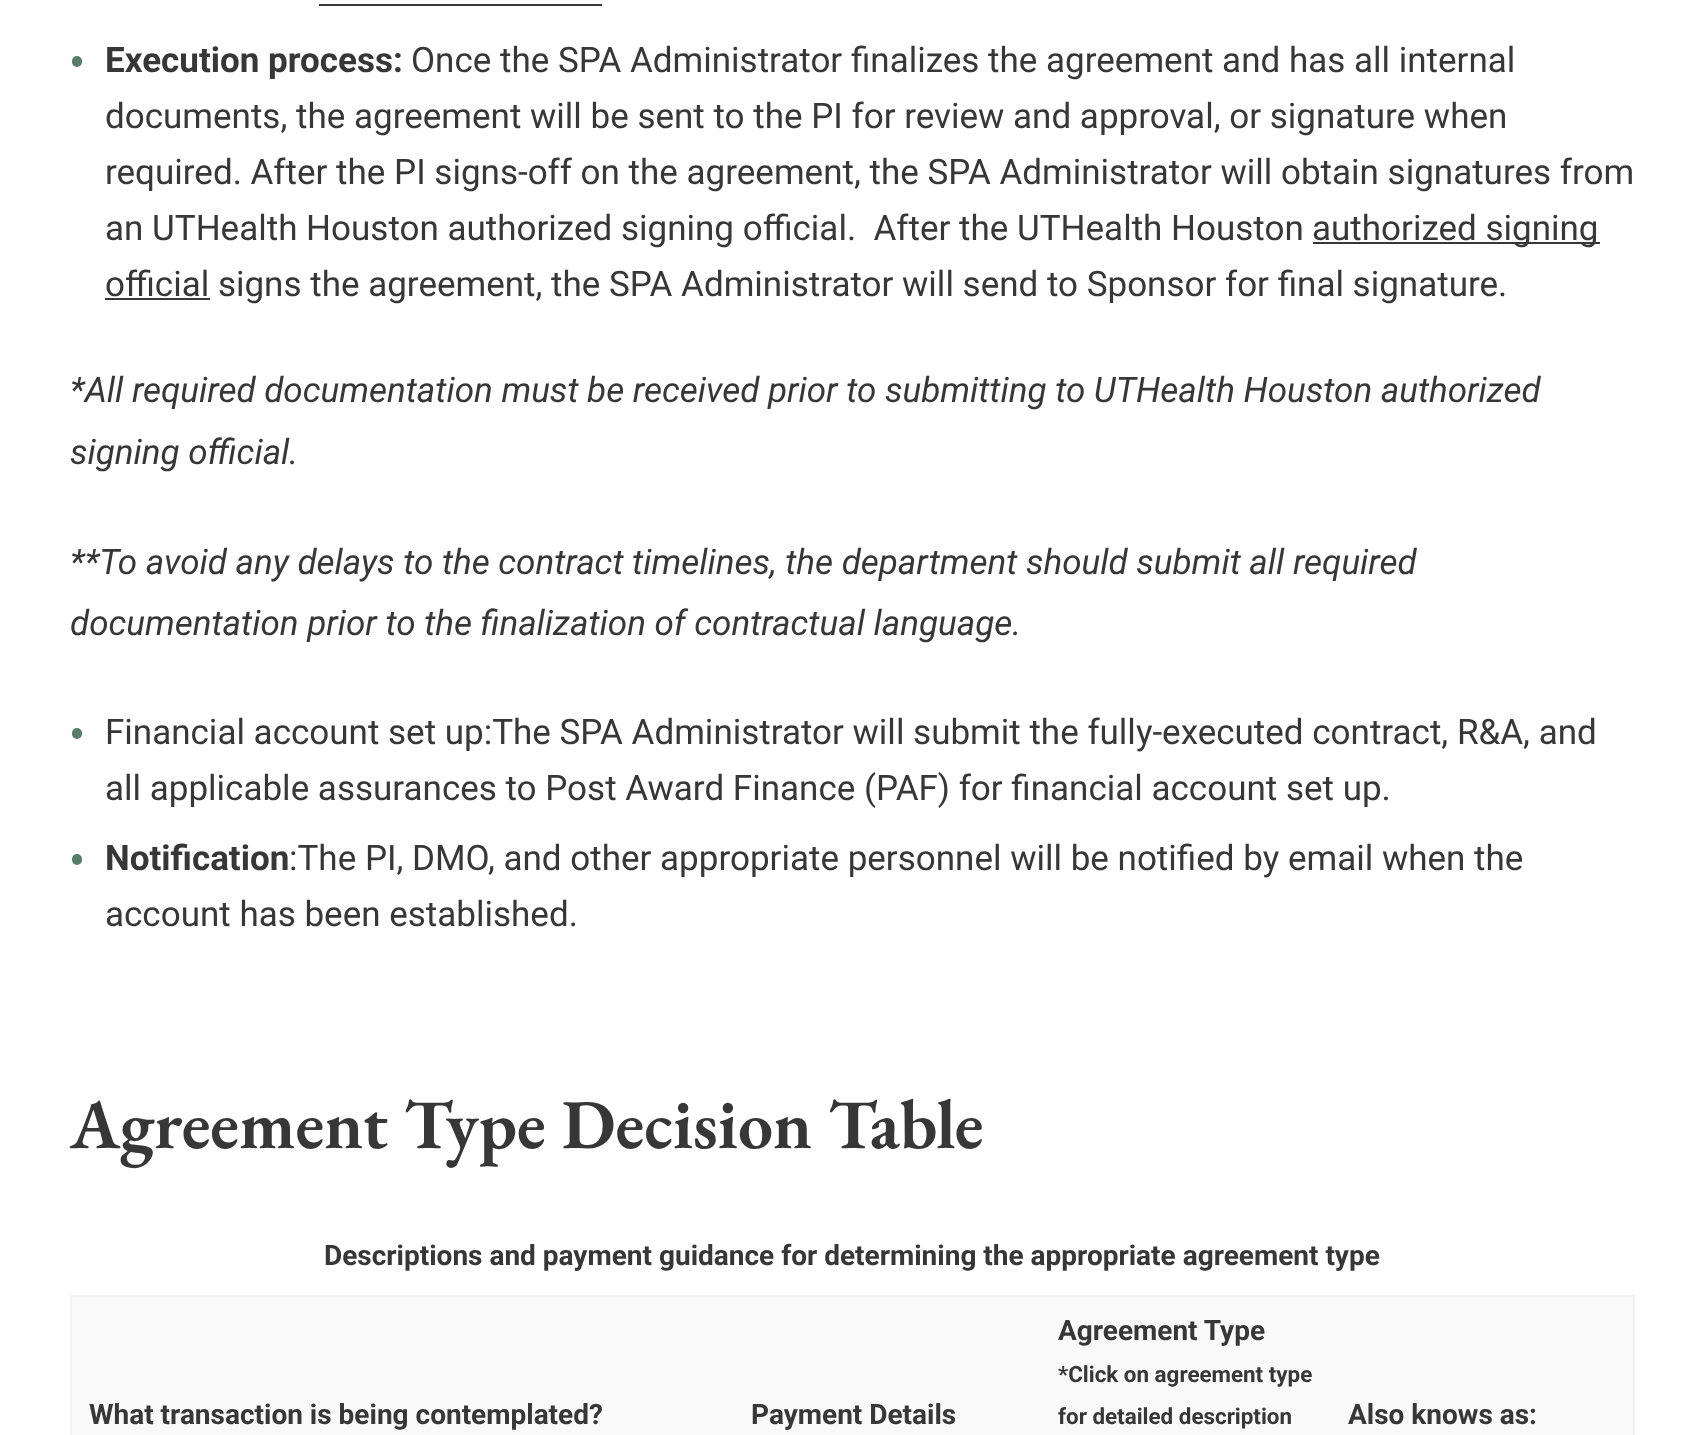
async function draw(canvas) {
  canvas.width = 1703;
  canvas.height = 1435;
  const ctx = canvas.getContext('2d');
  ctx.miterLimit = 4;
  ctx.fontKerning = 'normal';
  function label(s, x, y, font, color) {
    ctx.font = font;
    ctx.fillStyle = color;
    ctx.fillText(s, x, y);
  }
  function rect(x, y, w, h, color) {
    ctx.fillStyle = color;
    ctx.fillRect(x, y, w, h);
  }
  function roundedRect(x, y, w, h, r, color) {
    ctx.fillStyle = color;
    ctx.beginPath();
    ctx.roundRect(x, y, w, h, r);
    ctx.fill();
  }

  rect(0, 0, 1703, 1435, '#fff');
  rect(319, 4, 283, 2, '#383737');
  roundedRect(72, 56, 10, 11, 5, '#587e6a');
  label('Execution process:', 105, 72, 'bold 35px Roboto', '#383737');
  label('Once the SPA Administrator finalizes the agreement and has all internal', 411, 72, '35px Roboto', '#383737');
  label('documents, the agreement will be sent to the PI for review and approval, or signature when', 105, 128, '35px Roboto', '#383737');
  label('required. After the PI signs-off on the agreement, the SPA Administrator will obtain signatures from', 105, 184, '35px Roboto', '#383737');
  label('an UTHealth Houston authorized signing official.  After the UTHealth Houston', 105, 240, '35px Roboto', '#383737');
  rect(1313, 242, 287, 2, '#383737');
  label('authorized signing', 1312, 240, '35px Roboto', '#383737');
  rect(105, 298, 105, 2, '#383737');
  label('official signs the agreement, the SPA Administrator will send to Sponsor for final signature.', 105, 296, '35px Roboto', '#383737');
  label('*All required documentation must be received prior to submitting to UTHealth Houston authorized', 70, 402, 'italic 35px Roboto', '#383737');
  label('signing official.', 70, 464, 'italic 35px Roboto', '#383737');
  label('**To avoid any delays to the contract timelines, the department should submit all required', 70, 574, 'italic 35px Roboto', '#383737');
  label('documentation prior to the finalization of contractual language.', 70, 635, 'italic 35px Roboto', '#383737');
  roundedRect(72, 728, 10, 11, 5, '#587e6a');
  label('Financial account set up:The SPA Administrator will submit the fully-executed contract, R&A, and', 105, 744, '35px Roboto', '#383737');
  label('all applicable assurances to Post Award Finance (PAF) for financial account set up.', 105, 800, '35px Roboto', '#383737');
  roundedRect(72, 854, 10, 11, 5, '#587e6a');
  label('Notification', 105, 870, 'bold 35px Roboto', '#383737');
  label(':The PI, DMO, and other appropriate personnel will be notified by email when the', 289, 870, '35px Roboto', '#383737');
  label('account has been established.', 105, 926, '35px Roboto', '#383737');
  label('Agreement Type Decision Table', 70, 1148, '600 70px EB Garamond', '#383737');
  label('Descriptions and payment guidance for determining the appropriate agreement type', 324, 1265, 'bold 28px Roboto', '#383737');
  rect(72, 1297, 1561, 138, '#f9f9f9');
  rect(70, 1295, 1565, 2, '#f2f2f2');
  rect(1633, 1295, 2, 140, '#f2f2f2');
  rect(70, 1295, 2, 140, '#f2f2f2');
  label('What transaction is being contemplated?', 89, 1424, 'bold 28px Roboto', '#383737');
  label('Payment Details', 751, 1424, 'bold 28px Roboto', '#383737');
  label('Agreement Type', 1058, 1340, 'bold 28px Roboto', '#383737');
  label('*Click on agreement type', 1058, 1382, 'bold 22.4px Roboto', '#383737');
  label('for detailed description', 1058, 1424, 'bold 22.4px Roboto', '#383737');
  label('Also knows as:', 1348, 1424, 'bold 28px Roboto', '#383737');
}

draw(document.querySelector('canvas'));
